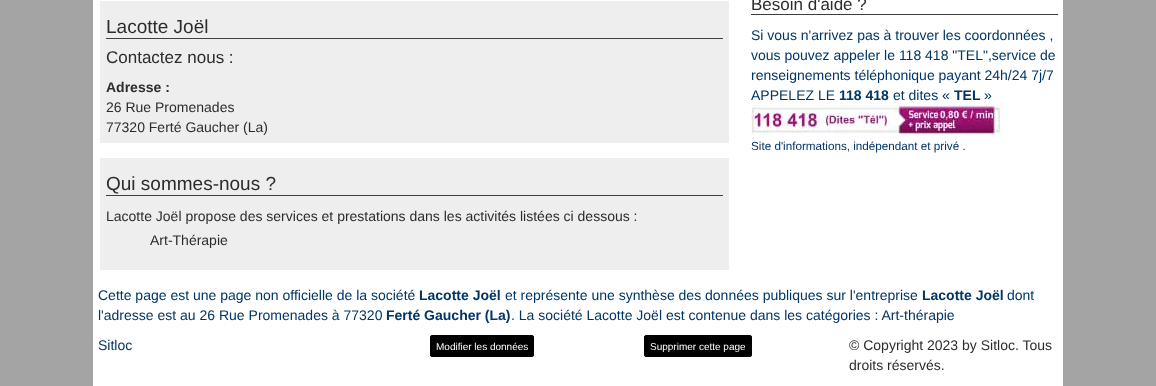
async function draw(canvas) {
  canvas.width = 1156;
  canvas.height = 386;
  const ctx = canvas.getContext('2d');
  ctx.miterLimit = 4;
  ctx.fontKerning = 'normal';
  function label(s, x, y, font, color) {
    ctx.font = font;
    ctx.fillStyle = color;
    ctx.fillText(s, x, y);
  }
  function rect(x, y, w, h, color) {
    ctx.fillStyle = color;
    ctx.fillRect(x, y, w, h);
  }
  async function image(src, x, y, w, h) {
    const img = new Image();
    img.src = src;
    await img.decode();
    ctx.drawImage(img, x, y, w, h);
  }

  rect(0, 0, 1156, 386, '#a4a4a4');
  rect(93, 0, 970, 386, '#fff');
  rect(100, 1, 629, 142, '#eee');
  rect(106, 38, 617, 1, '#3f3f3f');
  label('Lacotte Joël', 106, 33, '19px Liberation Sans', '#2c2c2c');
  label('Contactez nous :', 106, 63, '17px Liberation Sans', '#2c2c2c');
  label('Adresse :', 106, 92, 'bold 14px Liberation Sans', '#2c2c2c');
  label('26 Rue Promenades', 106, 112, '14px Liberation Sans', '#2c2c2c');
  label('77320 Ferté Gaucher (La)', 106, 132, '14px Liberation Sans', '#2c2c2c');
  rect(100, 158, 629, 112, '#eee');
  rect(106, 195, 617, 1, '#3f3f3f');
  label('Qui sommes-nous ?', 106, 190, '19px Liberation Sans', '#2c2c2c');
  label('Lacotte Joël propose des services et prestations dans les activités listées ci dessous :', 106, 221, '14px Liberation Sans', '#2c2c2c');
  label('Art-Thérapie', 150, 245, '14px Liberation Sans', '#2c2c2c');
  rect(751, 14, 307, 1, '#3f3f3f');
  label('Besoin d\'aide ?', 751, 10, '17px Liberation Sans', '#2c2c2c');
  label('Si vous n\'arrivez pas à trouver les coordonnées ,', 751, 40, '14px Liberation Sans', '#003564');
  label('vous pouvez appeler le 118 418 "TEL",service de', 751, 60, '14px Liberation Sans', '#003564');
  label('renseignements téléphonique payant 24h/24 7j/7', 751, 80, '14px Liberation Sans', '#003564');
  label('APPELEZ LE', 751, 100, '14px Liberation Sans', '#003564');
  label('118 418', 839, 100, 'bold 14px Liberation Sans', '#003564');
  label('et dites «', 893, 100, '14px Liberation Sans', '#003564');
  label('TEL', 954, 100, 'bold 14px Liberation Sans', '#003564');
  label('»', 984, 100, '14px Liberation Sans', '#003564');
  await image('assets/img1.png', 751, 105, 250, 30);
  label('Site d\'informations, indépendant et privé .', 751, 150, '11.7px Liberation Sans', '#003564');
  label('Cette page est une page non officielle de la société', 98, 300, '14px Liberation Sans', '#003564');
  label('Lacotte Joël', 419, 300, 'bold 14px Liberation Sans', '#003564');
  label('et représente une synthèse des données publiques sur l\'entreprise', 505, 300, '14px Liberation Sans', '#003564');
  label('Lacotte Joël', 922, 300, 'bold 14px Liberation Sans', '#003564');
  label('dont', 1007, 300, '14px Liberation Sans', '#003564');
  label('l\'adresse est au 26 Rue Promenades à 77320', 98, 320, '14px Liberation Sans', '#003564');
  label('Ferté Gaucher (La)', 386, 320, 'bold 14px Liberation Sans', '#003564');
  label('. La société Lacotte Joël est contenue dans les catégories : Art-thérapie', 511, 320, '14px Liberation Sans', '#003564');
  label('Sitloc', 98, 350, '14px Liberation Sans', '#003564');
  ctx.fillStyle = '#000';
  ctx.beginPath();
  ctx.roundRect(430.5, 335.5, 103, 21, 1.5);
  ctx.fill();
  ctx.strokeStyle = '#000';
  ctx.stroke();
  label('Modifier les données', 436, 350, '10px Liberation Sans', '#fff');
  ctx.fillStyle = '#000';
  ctx.beginPath();
  ctx.roundRect(644.5, 335.5, 107, 21, 1.5);
  ctx.fill();
  ctx.stroke();
  label('Supprimer cette page', 650, 350, '10px Liberation Sans', '#fff');
  label('© Copyright 2023 by Sitloc. Tous', 849, 350, '14px Liberation Sans', '#2c2c2c');
  label('droits réservés.', 849, 370, '14px Liberation Sans', '#2c2c2c');
}

draw(document.querySelector('canvas'));
